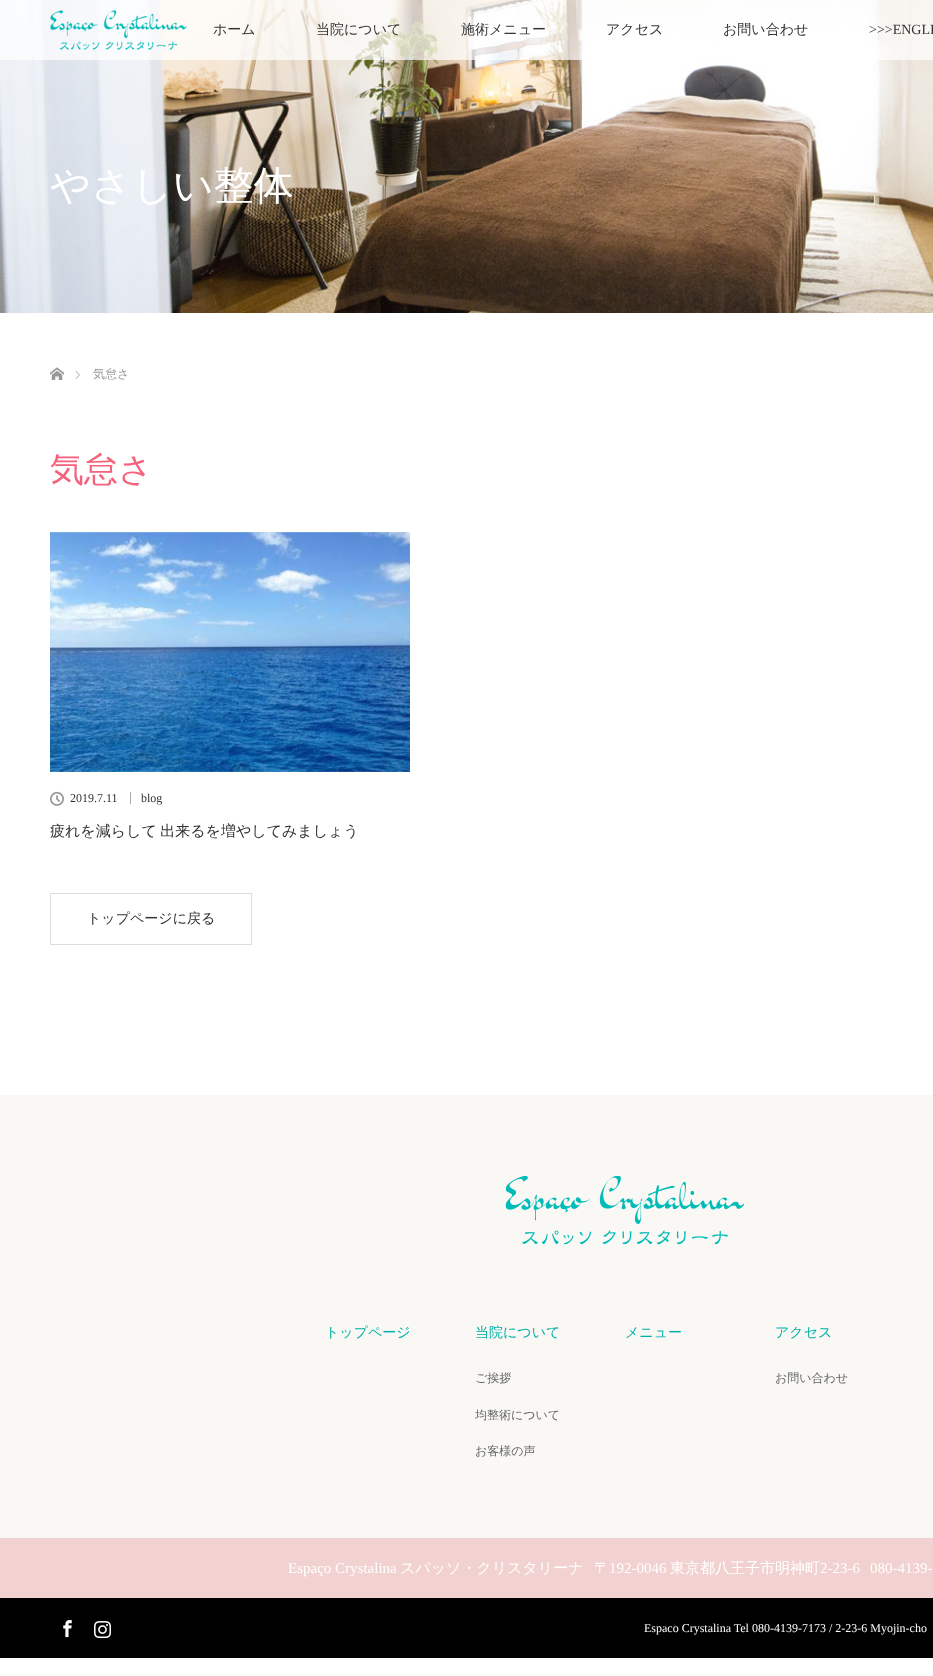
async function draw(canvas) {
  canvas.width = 933;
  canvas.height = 1676;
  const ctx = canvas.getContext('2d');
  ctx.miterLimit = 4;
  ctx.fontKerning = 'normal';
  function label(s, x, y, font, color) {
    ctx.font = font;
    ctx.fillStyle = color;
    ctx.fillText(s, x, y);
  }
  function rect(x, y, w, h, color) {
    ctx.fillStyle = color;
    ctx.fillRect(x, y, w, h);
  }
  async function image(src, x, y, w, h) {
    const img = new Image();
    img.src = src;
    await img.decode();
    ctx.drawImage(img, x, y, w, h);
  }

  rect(0, 0, 933, 1676, '#fff');
  await image('assets/img2.png', 0, 0, 933, 313);
  rect(0, 0, 933, 60, '#ffffffb3');
  await image('assets/img1.png', 50, 10, 137, 40);
  label('ホーム', 213, 34, '500 14px WenQuanYi Zen Hei', '#333');
  label('当院について', 316, 34, '500 14px WenQuanYi Zen Hei', '#333');
  label('施術メニュー', 461, 34, '500 14px WenQuanYi Zen Hei', '#333');
  label('アクセス', 606, 34, '500 14px WenQuanYi Zen Hei', '#333');
  label('お問い合わせ', 723, 34, '500 14px WenQuanYi Zen Hei', '#333');
  label('>>>ENGLI', 869, 34, '14px Liberation Serif', '#333');
  label('やさしい整体', 50, 199, '500 40px WenQuanYi Zen Hei', '#fff');
  await image('assets/img3.png', 50, 367, 14, 13);
  await image('assets/img4.png', 75, 371, 5, 8);
  label('気怠さ', 93, 378, '500 12px WenQuanYi Zen Hei', '#999');
  label('気怠さ', 50, 481, '500 34px WenQuanYi Zen Hei', '#f6627c');
  await image('assets/img5.png', 50, 532, 360, 240);
  await image('assets/img6.png', 50, 791, 14, 15);
  label('2019.7.11', 70, 802, '12px Liberation Serif', '#333');
  rect(130, 792, 1, 12, '#aaa');
  label('blog', 141, 802, '12px Liberation Serif', '#333');
  ctx.wordSpacing = '-1px';
  label('疲れを減らして 出来るを増やしてみましょう', 50, 836, '500 15px WenQuanYi Zen Hei', '#333');
  ctx.strokeStyle = '#ddd';
  ctx.strokeRect(50.5, 893.5, 201, 51);
  ctx.wordSpacing = '0px';
  label('トップページに戻る', 87, 923, '500 14px WenQuanYi Zen Hei', '#333');
  rect(0, 1095, 933, 443, '#f9f8f4');
  await image('assets/img7.png', 505, 1175, 240, 70);
  label('トップページ', 325, 1337, '500 14px WenQuanYi Zen Hei', '#00b0a8');
  label('当院について', 475, 1337, '500 14px WenQuanYi Zen Hei', '#00b0a8');
  label('ご挨拶', 475, 1382, '500 12px WenQuanYi Zen Hei', '#666');
  label('均整術について', 475, 1419, '500 12px WenQuanYi Zen Hei', '#666');
  label('お客様の声', 475, 1455, '500 12px WenQuanYi Zen Hei', '#666');
  label('メニュー', 625, 1337, '500 14px WenQuanYi Zen Hei', '#00b0a8');
  label('アクセス', 775, 1337, '500 14px WenQuanYi Zen Hei', '#00b0a8');
  label('お問い合わせ', 775, 1382, '500 12px WenQuanYi Zen Hei', '#666');
  rect(0, 1538, 933, 60, '#f2d2d0');
  label('Espaço Crystalina', 288, 1573, '15px Liberation Serif', '#fff');
  label('スパッソ・クリスタリーナ', 400, 1573, '500 15px WenQuanYi Zen Hei', '#fff');
  label('〒', 594, 1573, '500 15px WenQuanYi Zen Hei', '#fff');
  label('192-0046', 609, 1573, '15px Liberation Serif', '#fff');
  label('東京都八王子市明神町', 670, 1573, '500 15px WenQuanYi Zen Hei', '#fff');
  label('2-23-6', 820, 1573, '15px Liberation Serif', '#fff');
  label('080-4139-', 870, 1573, '15px Liberation Serif', '#fff');
  rect(0, 1598, 933, 60, '#000');
  await image('assets/img8.png', 63, 1620, 9, 18);
  await image('assets/img9.png', 94, 1621, 17, 18);
  label('Espaco Crystalina Tel 080-4139-7173 / 2-23-6 Myojin-cho', 644, 1632, '12px Liberation Serif', '#fff');
}

draw(document.querySelector('canvas'));
